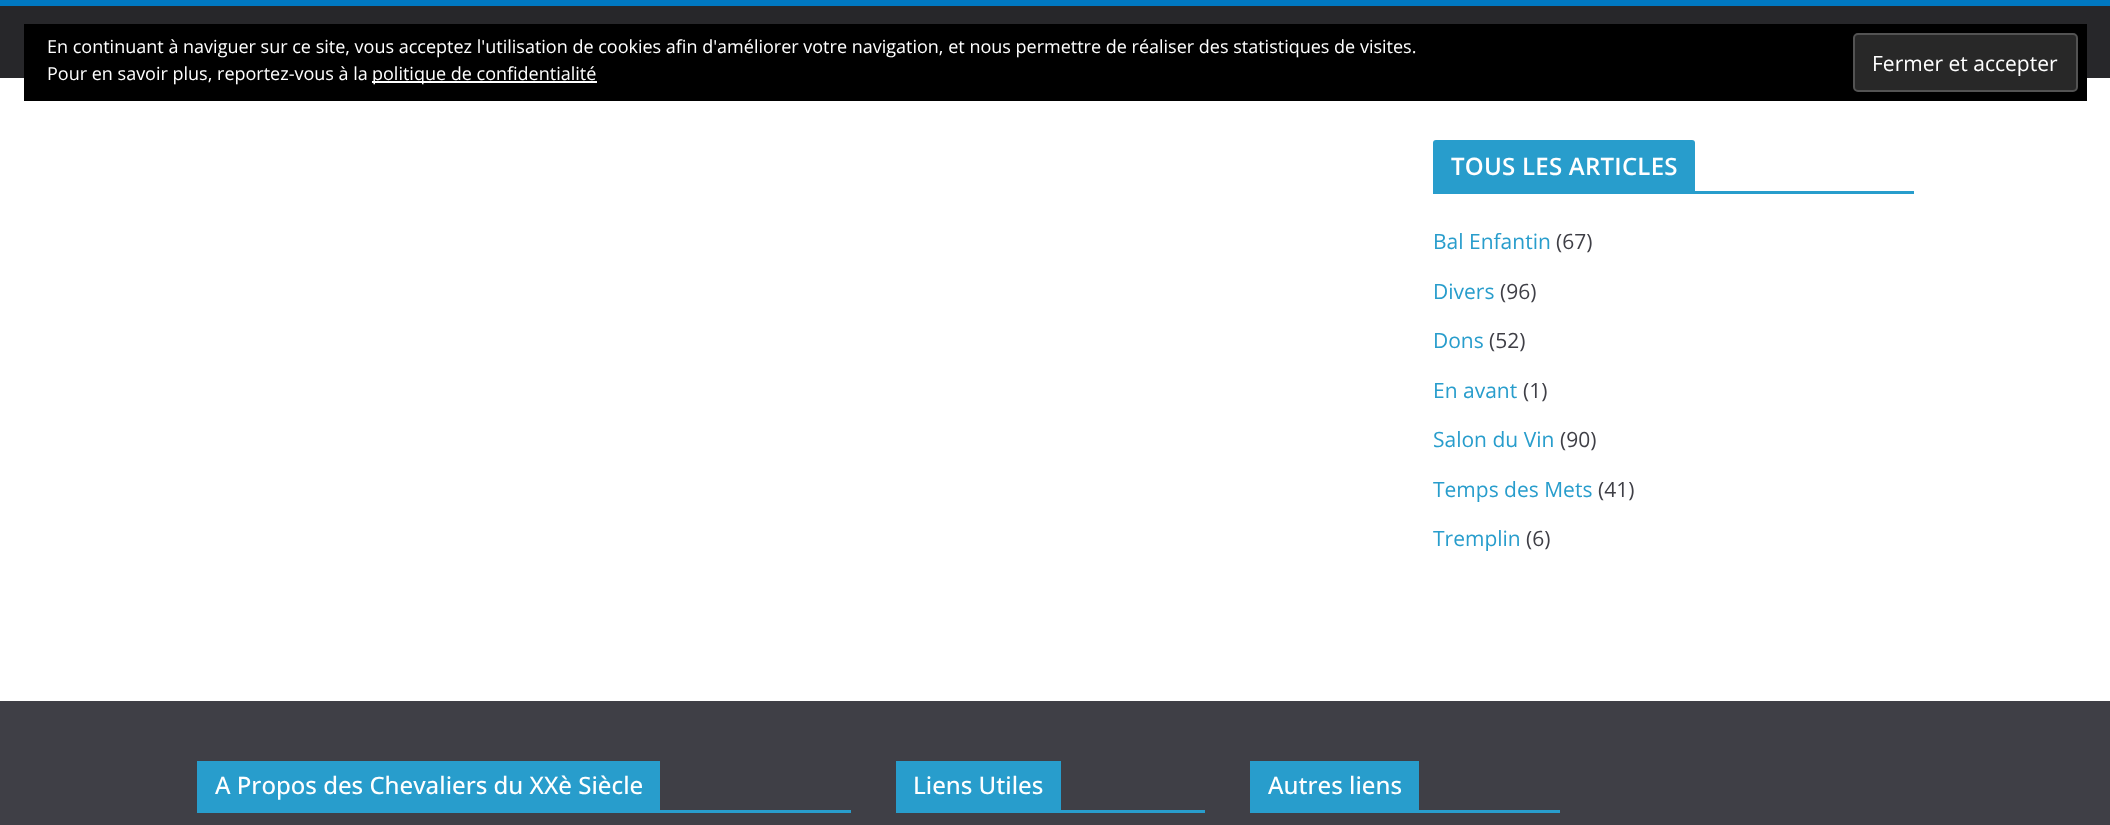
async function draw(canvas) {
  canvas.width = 2110;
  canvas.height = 825;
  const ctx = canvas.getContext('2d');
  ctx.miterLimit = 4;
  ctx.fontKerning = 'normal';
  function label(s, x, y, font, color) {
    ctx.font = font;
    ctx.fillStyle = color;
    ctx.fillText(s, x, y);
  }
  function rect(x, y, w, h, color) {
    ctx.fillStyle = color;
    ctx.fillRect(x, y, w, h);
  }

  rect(0, 0, 2110, 825, '#fff');
  rect(0, 6, 2110, 72, '#27272a');
  rect(24, 24, 2063, 77, '#000');
  label('En continuant à naviguer sur ce site, vous acceptez l\'utilisation de cookies afin d\'améliorer votre navigation, et nous permettre de réaliser des statistiques de visites.', 47, 53, '18px Open Sans', '#fff');
  label('Pour en savoir plus, reportez-vous à la', 47, 80, '18px Open Sans', '#fff');
  rect(372, 81, 225, 2, '#fff');
  label('politique de confidentialité', 372, 80, '18px Open Sans', '#fff');
  ctx.fillStyle = '#282828';
  ctx.beginPath();
  ctx.roundRect(1854, 34, 223, 57, 4);
  ctx.fill();
  ctx.strokeStyle = '#535353';
  ctx.lineWidth = 2;
  ctx.stroke();
  label('Fermer et accepter', 1872, 71, '21px Open Sans', '#fff');
  rect(0, 0, 2110, 6, '#0078c1');
  rect(1433, 191, 481, 3, '#289dcc');
  ctx.beginPath();
  ctx.roundRect(1433, 140, 262, 51, [3, 3, 0, 0]);
  ctx.fill();
  ctx.letterSpacing = '0.25px';
  label('TOUS LES ARTICLES', 1451, 175, '600 24px Open Sans', '#fff');
  ctx.letterSpacing = '0px';
  label('Bal Enfantin', 1433, 249, '21px Open Sans', '#289dcc');
  label('(67)', 1556, 249, '21px Open Sans', '#3f3f46');
  label('Divers', 1433, 299, '21px Open Sans', '#289dcc');
  label('(96)', 1500, 299, '21px Open Sans', '#3f3f46');
  label('Dons', 1433, 348, '21px Open Sans', '#289dcc');
  label('(52)', 1489, 348, '21px Open Sans', '#3f3f46');
  label('En avant', 1433, 398, '21px Open Sans', '#289dcc');
  label('(1)', 1523, 398, '21px Open Sans', '#3f3f46');
  label('Salon du Vin', 1433, 447, '21px Open Sans', '#289dcc');
  label('(90)', 1560, 447, '21px Open Sans', '#3f3f46');
  label('Temps des Mets', 1433, 497, '21px Open Sans', '#289dcc');
  label('(41)', 1598, 497, '21px Open Sans', '#3f3f46');
  label('Tremplin', 1433, 546, '21px Open Sans', '#289dcc');
  label('(6)', 1526, 546, '21px Open Sans', '#3f3f46');
  rect(0, 701, 2110, 124, '#3f3f46');
  rect(197, 810, 654, 3, '#289dcc');
  rect(197, 761, 463, 49, '#289dcc');
  label('A Propos des Chevaliers du XXè Siècle', 215, 794, '500 24px Open Sans', '#fff');
  rect(896, 810, 309, 3, '#289dcc');
  rect(896, 761, 165, 49, '#289dcc');
  label('Liens Utiles', 913, 794, '500 24px Open Sans', '#fff');
  rect(1250, 810, 310, 3, '#289dcc');
  rect(1250, 761, 169, 49, '#289dcc');
  label('Autres liens', 1268, 794, '500 24px Open Sans', '#fff');
}

draw(document.querySelector('canvas'));
